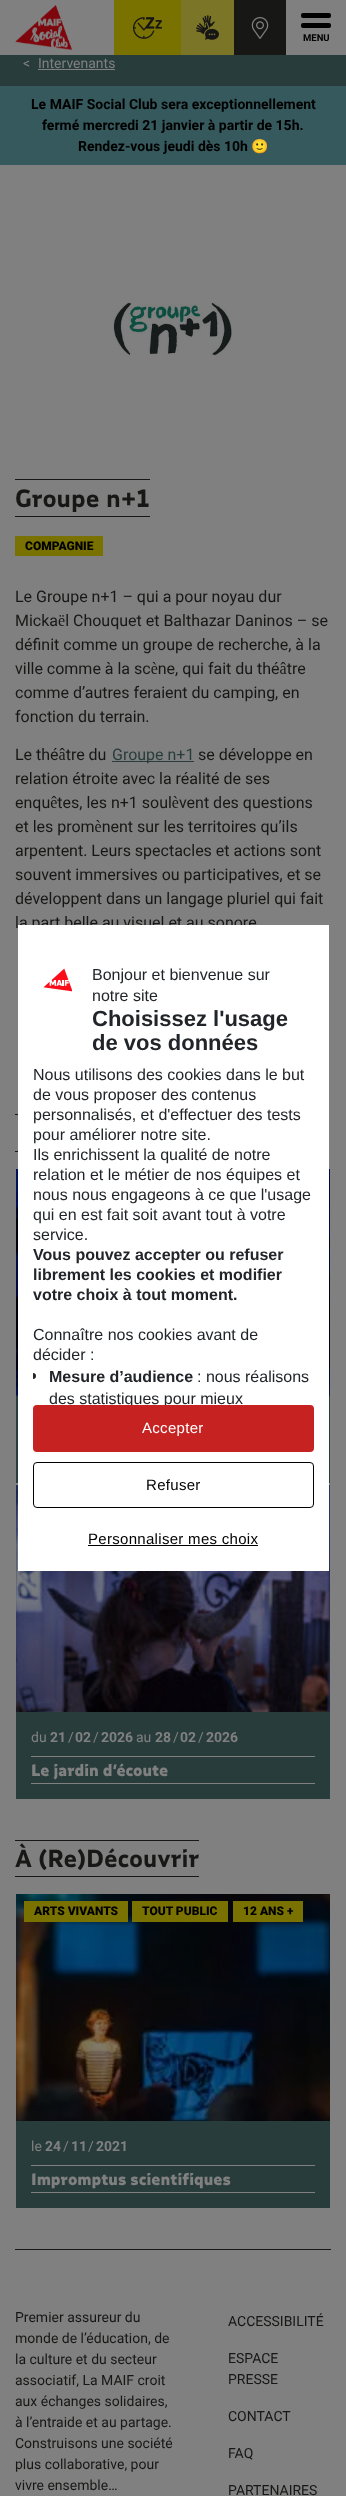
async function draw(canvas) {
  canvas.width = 346;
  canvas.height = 2496;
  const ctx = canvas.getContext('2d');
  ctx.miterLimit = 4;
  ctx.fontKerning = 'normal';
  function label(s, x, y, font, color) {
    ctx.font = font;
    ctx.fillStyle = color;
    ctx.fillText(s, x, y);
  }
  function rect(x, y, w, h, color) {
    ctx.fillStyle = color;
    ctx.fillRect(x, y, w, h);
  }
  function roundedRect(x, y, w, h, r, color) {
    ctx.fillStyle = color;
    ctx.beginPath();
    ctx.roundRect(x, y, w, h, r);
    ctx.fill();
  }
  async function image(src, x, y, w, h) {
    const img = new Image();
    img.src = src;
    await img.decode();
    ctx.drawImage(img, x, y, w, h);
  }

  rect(0, 0, 346, 2496, '#808080');
  await image('assets/img1.png', 15, 5, 57, 45);
  rect(114, 0, 67, 55, '#797100');
  await image('assets/img2.png', 133, 17, 29, 22);
  rect(181, 0, 53, 55, '#7b7627');
  await image('assets/img3.png', 196, 15, 23, 25);
  rect(234, 0, 52, 55, '#171716');
  await image('assets/img4.png', 251, 17, 18, 22);
  roundedRect(301, 13, 30, 5, 2, '#000');
  roundedRect(301, 23, 30, 5, 2, '#000');
  label('MENU', 303, 41, 'bold 9.5px Roboto', '#000');
  rect(0, 55, 346, 31, '#283c3b');
  label('<', 23, 68, '14px Roboto', '#808080');
  label('Intervenants', 38, 68, '14px Roboto', '#808080');
  rect(38, 69, 77, 1, '#808080');
  rect(0, 86, 346, 79, '#35595c');
  label('Le MAIF Social Club sera exceptionnellement', 31, 109, 'bold 14px Roboto', '#000');
  label('fermé mercredi 21 janvier à partir de 15h.', 42, 130, 'bold 14px Roboto', '#000');
  label('Rendez-vous jeudi dès 10h', 78, 151, 'bold 14px Roboto', '#000');
  label('🙂', 251, 151, 'bold 14px Noto Color Emoji', '#000');
  await image('assets/img5.png', 113, 302, 119, 54);
  rect(15, 479, 135, 1, '#171716');
  rect(15, 516, 135, 1, '#171716');
  label('Groupe n+1', 15, 507, 'bold 24.25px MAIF', '#171716');
  rect(15, 536, 88, 20, '#797100');
  label('COMPAGNIE', 25, 550, '900 12px Roboto', '#000');
  label('Le Groupe n+1 – qui a pour noyau dur', 15, 602, '16px Roboto', '#171716');
  label('Mickaël Chouquet et Balthazar Daninos – se', 15, 626, '16px Roboto', '#171716');
  label('définit comme un groupe de recherche, à la', 15, 650, '16px Roboto', '#171716');
  label('ville comme à la scène, qui fait du théâtre', 15, 674, '16px Roboto', '#171716');
  label('comme d’autres feraient du camping, en', 15, 698, '16px Roboto', '#171716');
  label('fonction du terrain.', 15, 722, '16px Roboto', '#171716');
  label('Le théâtre du', 15, 760, '16px Roboto', '#171716');
  rect(112, 761, 82, 1, '#283c3b');
  label('Groupe n+1', 112, 760, '16px Roboto', '#283c3b');
  label('se développe en', 198, 760, '16px Roboto', '#171716');
  label('relation étroite avec la réalité de ses', 15, 784, '16px Roboto', '#171716');
  label('enquêtes, les n+1 soulèvent des questions', 15, 808, '16px Roboto', '#171716');
  label('et les promènent sur les territoires qu’ils', 15, 832, '16px Roboto', '#171716');
  label('arpentent. Leurs spectacles et actions sont', 15, 856, '16px Roboto', '#171716');
  label('souvent immersives ou participatives, et se', 15, 880, '16px Roboto', '#171716');
  label('développent dans un langage pluriel qui fait', 15, 904, '16px Roboto', '#171716');
  label('la part belle au visuel et au sonore', 15, 928, '16px Roboto', '#171716');
  rect(15, 1114, 3, 1, '#171716');
  rect(15, 1151, 3, 1, '#171716');
  await image('assets/img6.png', 16, 1169, 314, 227);
  rect(16, 1396, 314, 87, '#283c3b');
  await image('assets/img7.png', 16, 1485, 314, 227);
  rect(16, 1712, 314, 87, '#283c3b');
  label('du', 31, 1742, '14px Roboto', '#808080');
  label('21', 50, 1742, 'bold 14px Roboto', '#808080');
  label('/', 68, 1742, '14px Roboto', '#808080');
  label('02', 75, 1742, 'bold 14px Roboto', '#808080');
  label('/', 93, 1742, '14px Roboto', '#808080');
  label('2026', 101, 1742, 'bold 14px Roboto', '#808080');
  label('au', 136, 1742, '14px Roboto', '#808080');
  label('28', 155, 1742, 'bold 14px Roboto', '#808080');
  label('/', 173, 1742, '14px Roboto', '#808080');
  label('02', 180, 1742, 'bold 14px Roboto', '#808080');
  label('/', 198, 1742, '14px Roboto', '#808080');
  label('2026', 206, 1742, 'bold 14px Roboto', '#808080');
  rect(31, 1756, 284, 1, '#808080');
  rect(31, 1783, 284, 1, '#808080');
  label('Le jardin d’écoute', 31, 1776, '900 16px MAIF', '#808080');
  rect(15, 1840, 184, 1, '#171716');
  rect(15, 1876, 184, 1, '#171716');
  label('À (Re)Découvrir', 15, 1867, 'bold 24px MAIF', '#171716');
  await image('assets/img8.png', 16, 1894, 314, 227);
  rect(24, 1901, 104, 21, '#797100');
  label('ARTS VIVANTS', 34, 1915, '900 12px Roboto', '#000');
  rect(132, 1901, 96, 21, '#797100');
  label('TOUT PUBLIC', 142, 1915, '900 12px Roboto', '#000');
  rect(233, 1901, 70, 21, '#797100');
  label('12 ANS +', 243, 1915, '900 12px Roboto', '#000');
  rect(16, 2121, 314, 87, '#283c3b');
  label('le', 31, 2151, '14px Roboto', '#808080');
  label('24', 45, 2151, 'bold 14px Roboto', '#808080');
  label('/', 63, 2151, '14px Roboto', '#808080');
  label('11', 71, 2151, 'bold 14px Roboto', '#808080');
  label('/', 88, 2151, '14px Roboto', '#808080');
  label('2021', 96, 2151, 'bold 14px Roboto', '#808080');
  rect(31, 2165, 284, 1, '#808080');
  rect(31, 2192, 284, 1, '#808080');
  label('Impromptus scientifiques', 31, 2185, '900 16px MAIF', '#808080');
  rect(18, 925, 311, 646, '#fff');
  await image('assets/img9.png', 43, 968, 29, 24);
  label('Bonjour et bienvenue sur', 92, 980, '16px Liberation Sans', '#212529');
  label('notre site', 92, 1001, '16px Liberation Sans', '#212529');
  label('Choisissez l\'usage', 92, 1026, 'bold 22px Liberation Sans', '#212529');
  label('de vos données', 92, 1050, 'bold 22px Liberation Sans', '#212529');
  label('Nous utilisons des cookies dans le but', 33, 1080, '16px Liberation Sans', '#212529');
  label('de vous proposer des contenus', 33, 1100, '16px Liberation Sans', '#212529');
  label('personnalisés, et d\'effectuer des tests', 33, 1120, '16px Liberation Sans', '#212529');
  label('pour améliorer notre site.', 33, 1140, '16px Liberation Sans', '#212529');
  label('Ils enrichissent la qualité de notre', 33, 1160, '16px Liberation Sans', '#212529');
  label('relation et le métier de nos équipes et', 33, 1180, '16px Liberation Sans', '#212529');
  label('nous nous engageons à ce que l\'usage', 33, 1200, '16px Liberation Sans', '#212529');
  label('qui en est fait soit avant tout à votre', 33, 1220, '16px Liberation Sans', '#212529');
  label('service.', 33, 1240, '16px Liberation Sans', '#212529');
  label('Vous pouvez accepter ou refuser', 33, 1260, 'bold 16px Liberation Sans', '#212529');
  label('librement les cookies et modifier', 33, 1280, 'bold 16px Liberation Sans', '#212529');
  label('votre choix à tout moment.', 33, 1300, 'bold 16px Liberation Sans', '#212529');
  label('Connaître nos cookies avant de', 33, 1340, '16px Liberation Sans', '#212529');
  label('décider :', 33, 1360, '16px Liberation Sans', '#212529');
  ctx.beginPath();
  ctx.roundRect(33, 1373, 3, 6, [0, 3, 3, 0]);
  ctx.fill();
  label('Mesure d’audience', 49, 1382, 'bold 16px Liberation Sans', '#212529');
  label(': nous réalisons', 197, 1382, '16px Liberation Sans', '#212529');
  label('des statistiques pour mieux', 49, 1404, '16px Liberation Sans', '#212529');
  roundedRect(33, 1405, 281, 47, 4, '#c62222');
  ctx.letterSpacing = '0.3px';
  label('Accepter', 142, 1433, '15px Liberation Sans', '#fff');
  ctx.beginPath();
  ctx.roundRect(33.5, 1462.5, 280, 45, 3.5);
  ctx.strokeStyle = '#000';
  ctx.stroke();
  label('Refuser', 146, 1490, '15px Liberation Sans', '#000');
  label('Personnaliser mes choix', 88, 1544, '15px Liberation Sans', '#000');
  rect(88, 1545, 170, 1, '#000');
  rect(15, 2249, 316, 1, '#171716');
  ctx.letterSpacing = '0px';
  label('Premier assureur du', 15, 2322, '14px Roboto', '#171716');
  label('monde de l’éducation, de', 15, 2343, '14px Roboto', '#171716');
  label('la culture et du secteur', 15, 2364, '14px Roboto', '#171716');
  label('associatif, La MAIF croit', 15, 2385, '14px Roboto', '#171716');
  label('aux échanges solidaires,', 15, 2406, '14px Roboto', '#171716');
  label('à l’entraide et au partage.', 15, 2427, '14px Roboto', '#171716');
  label('Construisons une société', 15, 2448, '14px Roboto', '#171716');
  label('plus collaborative, pour', 15, 2469, '14px Roboto', '#171716');
  label('vivre ensemble…', 15, 2490, '14px Roboto', '#171716');
  label('ACCESSIBILITÉ', 228, 2326, '14px Roboto', '#171716');
  label('ESPACE', 228, 2363, '14px Roboto', '#171716');
  label('PRESSE', 228, 2384, '14px Roboto', '#171716');
  label('CONTACT', 228, 2421, '14px Roboto', '#171716');
  label('FAQ', 228, 2458, '14px Roboto', '#171716');
  label('PARTENAIRES', 228, 2495, '14px Roboto', '#171716');
}

draw(document.querySelector('canvas'));
